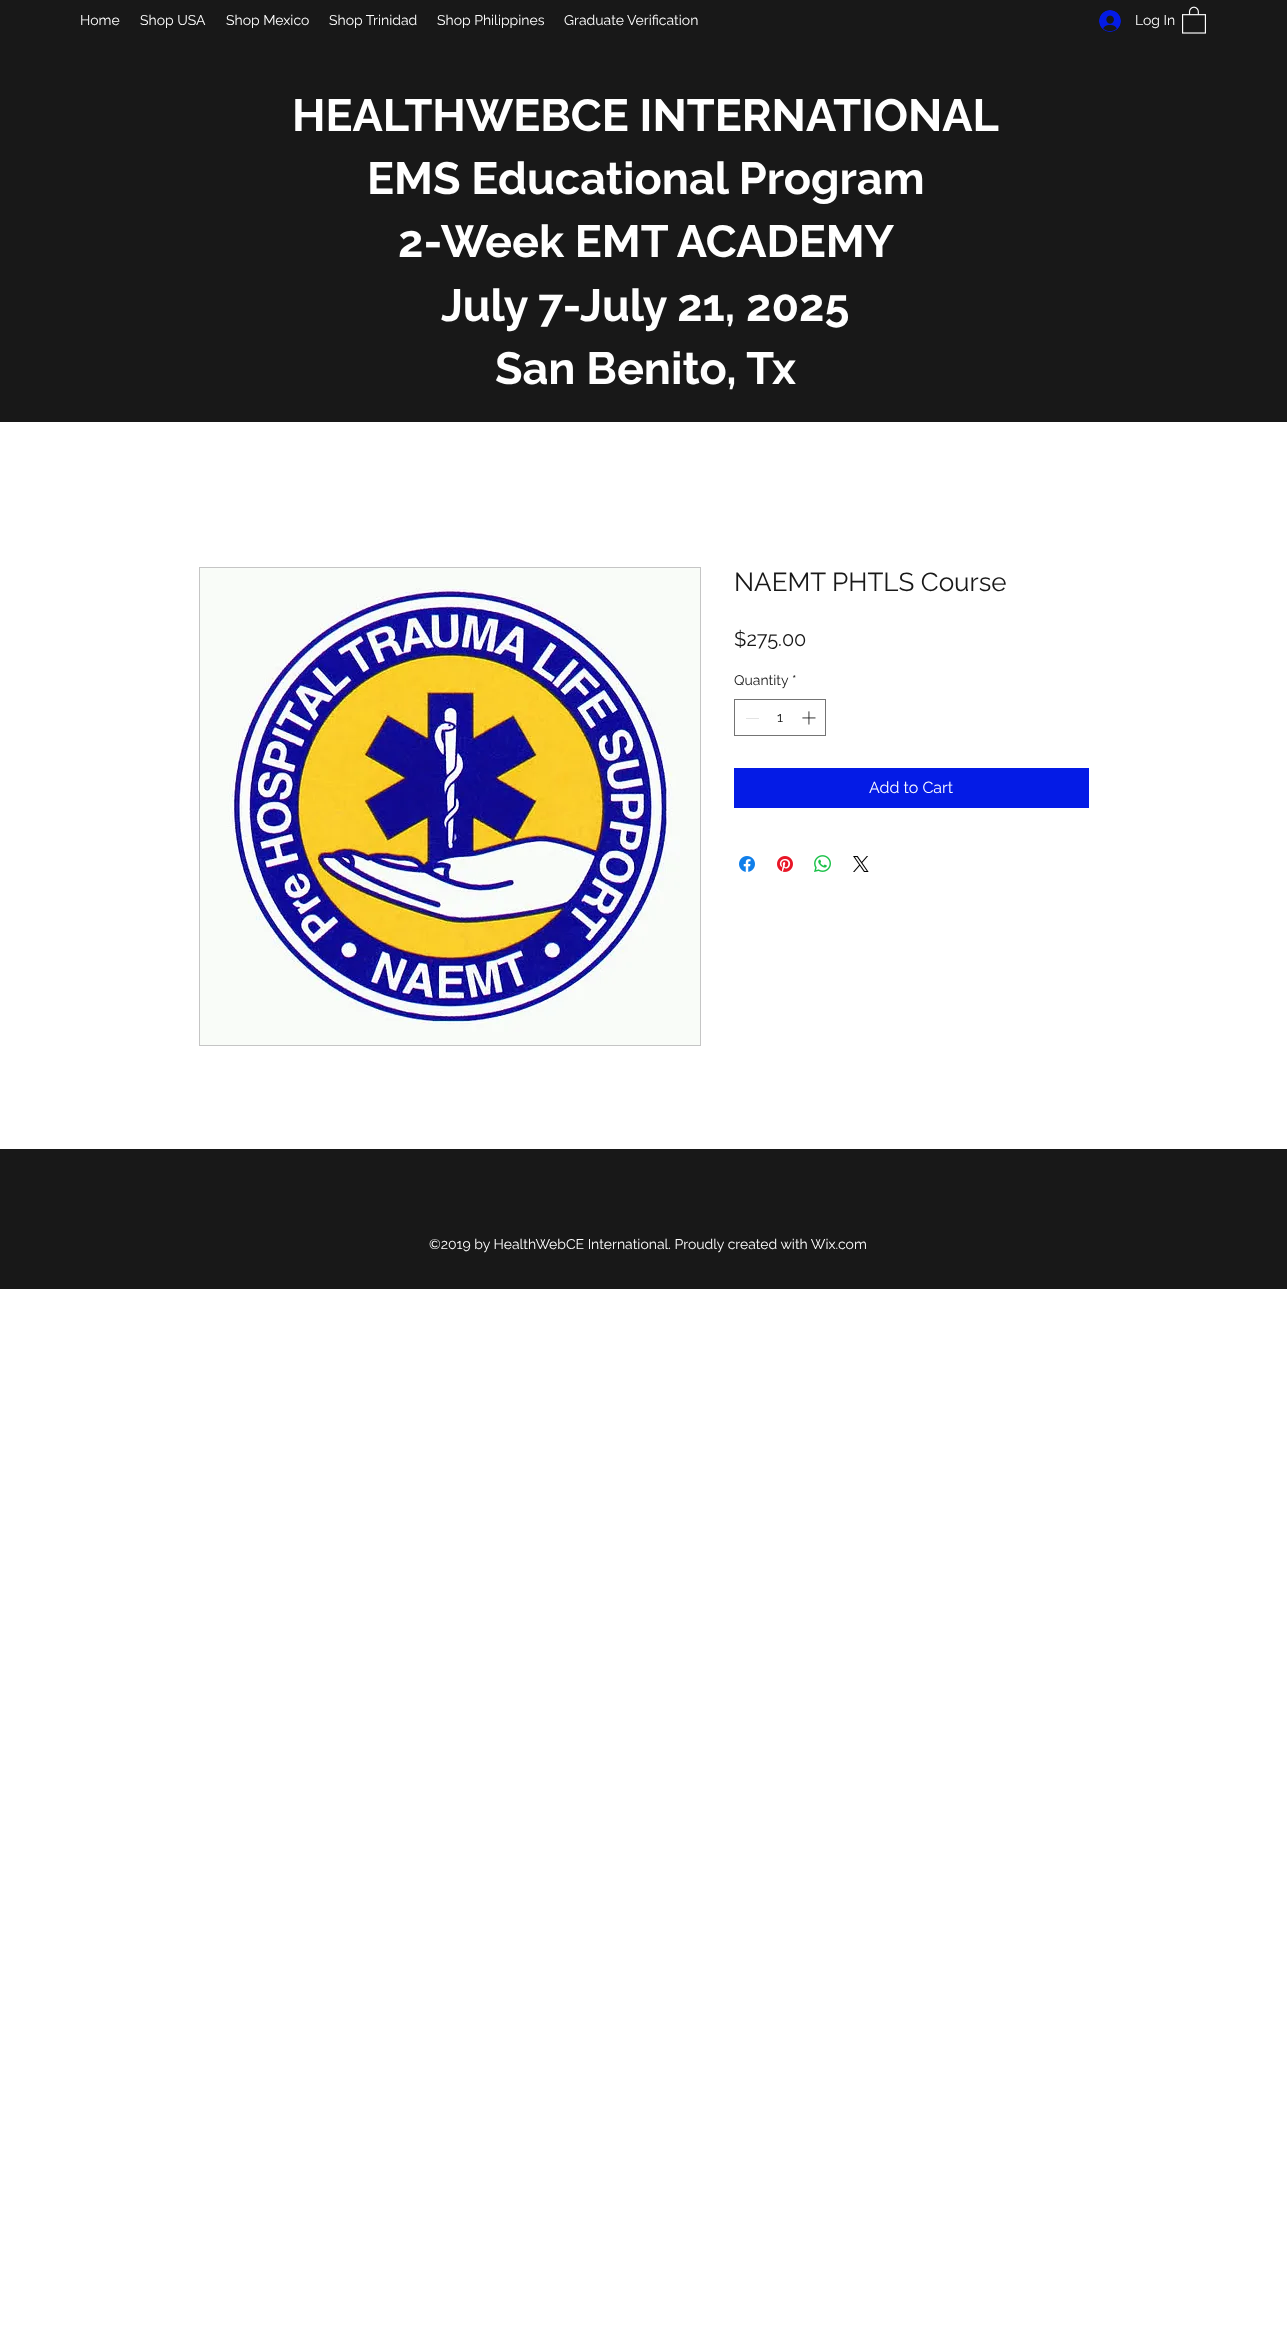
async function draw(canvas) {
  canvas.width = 1287;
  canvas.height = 2332;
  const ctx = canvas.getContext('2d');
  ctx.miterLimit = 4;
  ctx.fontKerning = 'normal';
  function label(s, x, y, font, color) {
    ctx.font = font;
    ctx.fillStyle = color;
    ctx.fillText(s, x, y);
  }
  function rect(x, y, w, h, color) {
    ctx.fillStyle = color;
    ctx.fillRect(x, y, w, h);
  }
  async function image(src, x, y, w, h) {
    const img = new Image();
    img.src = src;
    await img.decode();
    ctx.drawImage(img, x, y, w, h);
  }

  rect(0, 0, 1287, 2332, '#fff');
  rect(0, 0, 1287, 422, '#181818');
  label('Home', 80, 25, '14px Raleway', '#fff');
  label('Shop USA', 140, 25, '14px Raleway', '#fff');
  label('Shop Mexico', 226, 25, '14px Raleway', '#fff');
  label('Shop Trinidad', 329, 25, '14px Raleway', '#fff');
  label('Shop Philippines', 437, 25, '14px Raleway', '#fff');
  label('Graduate Verification', 564, 25, '14px Raleway', '#fff');
  await image('assets/img1.png', 1099, 10, 22, 22);
  label('Log In', 1135, 25, '14px Raleway', '#fff');
  await image('assets/img2.png', 1182, 6, 24, 28);
  label('HEALTHWEBCE INTERNATIONAL', 292, 131, 'bold 45px Raleway', '#fff');
  label('EMS Educational Program', 367, 194, 'bold 45px Raleway', '#fff');
  label('2-Week EMT ACADEMY', 398, 257, 'bold 45px Raleway', '#fff');
  label('July 7-July 21, 2025', 441, 321, 'bold 45px Raleway', '#fff');
  label('San Benito, Tx', 495, 384, 'bold 45px Raleway', '#fff');
  ctx.strokeStyle = '#c5c5c5';
  ctx.strokeRect(199.5, 567.5, 501, 478);
  await image('assets/img3.png', 200, 568, 500, 477);
  label('NAEMT PHTLS Course', 734, 591, '26px Raleway', '#181818');
  label('$275.00', 734, 646, '20px Raleway', '#181818');
  label('Quantity', 734, 685, '14px Raleway', '#181818');
  label('*', 792, 685, '14px Raleway', '#181818');
  ctx.strokeStyle = '#747474';
  ctx.strokeRect(734.5, 699.5, 91, 36);
  rect(746, 718, 13, 1, '#e3e3e3');
  label('1', 777, 722, '14px Raleway', '#181818');
  await image('assets/img4.png', 802, 711, 14, 14);
  rect(734, 768, 355, 40, '#041be6');
  label('Add to Cart', 869, 793, '16px Raleway', '#fff');
  await image('assets/img5.png', 739, 856, 16, 16);
  await image('assets/img6.png', 777, 856, 16, 16);
  await image('assets/img7.png', 814, 855, 17, 17);
  await image('assets/img8.png', 853, 856, 16, 16);
  rect(0, 1149, 1287, 140, '#181818');
  label('©2019 by HealthWebCE International. Proudly created with Wix.com', 429, 1249, '14px Raleway', '#fff');
}

draw(document.querySelector('canvas'));
